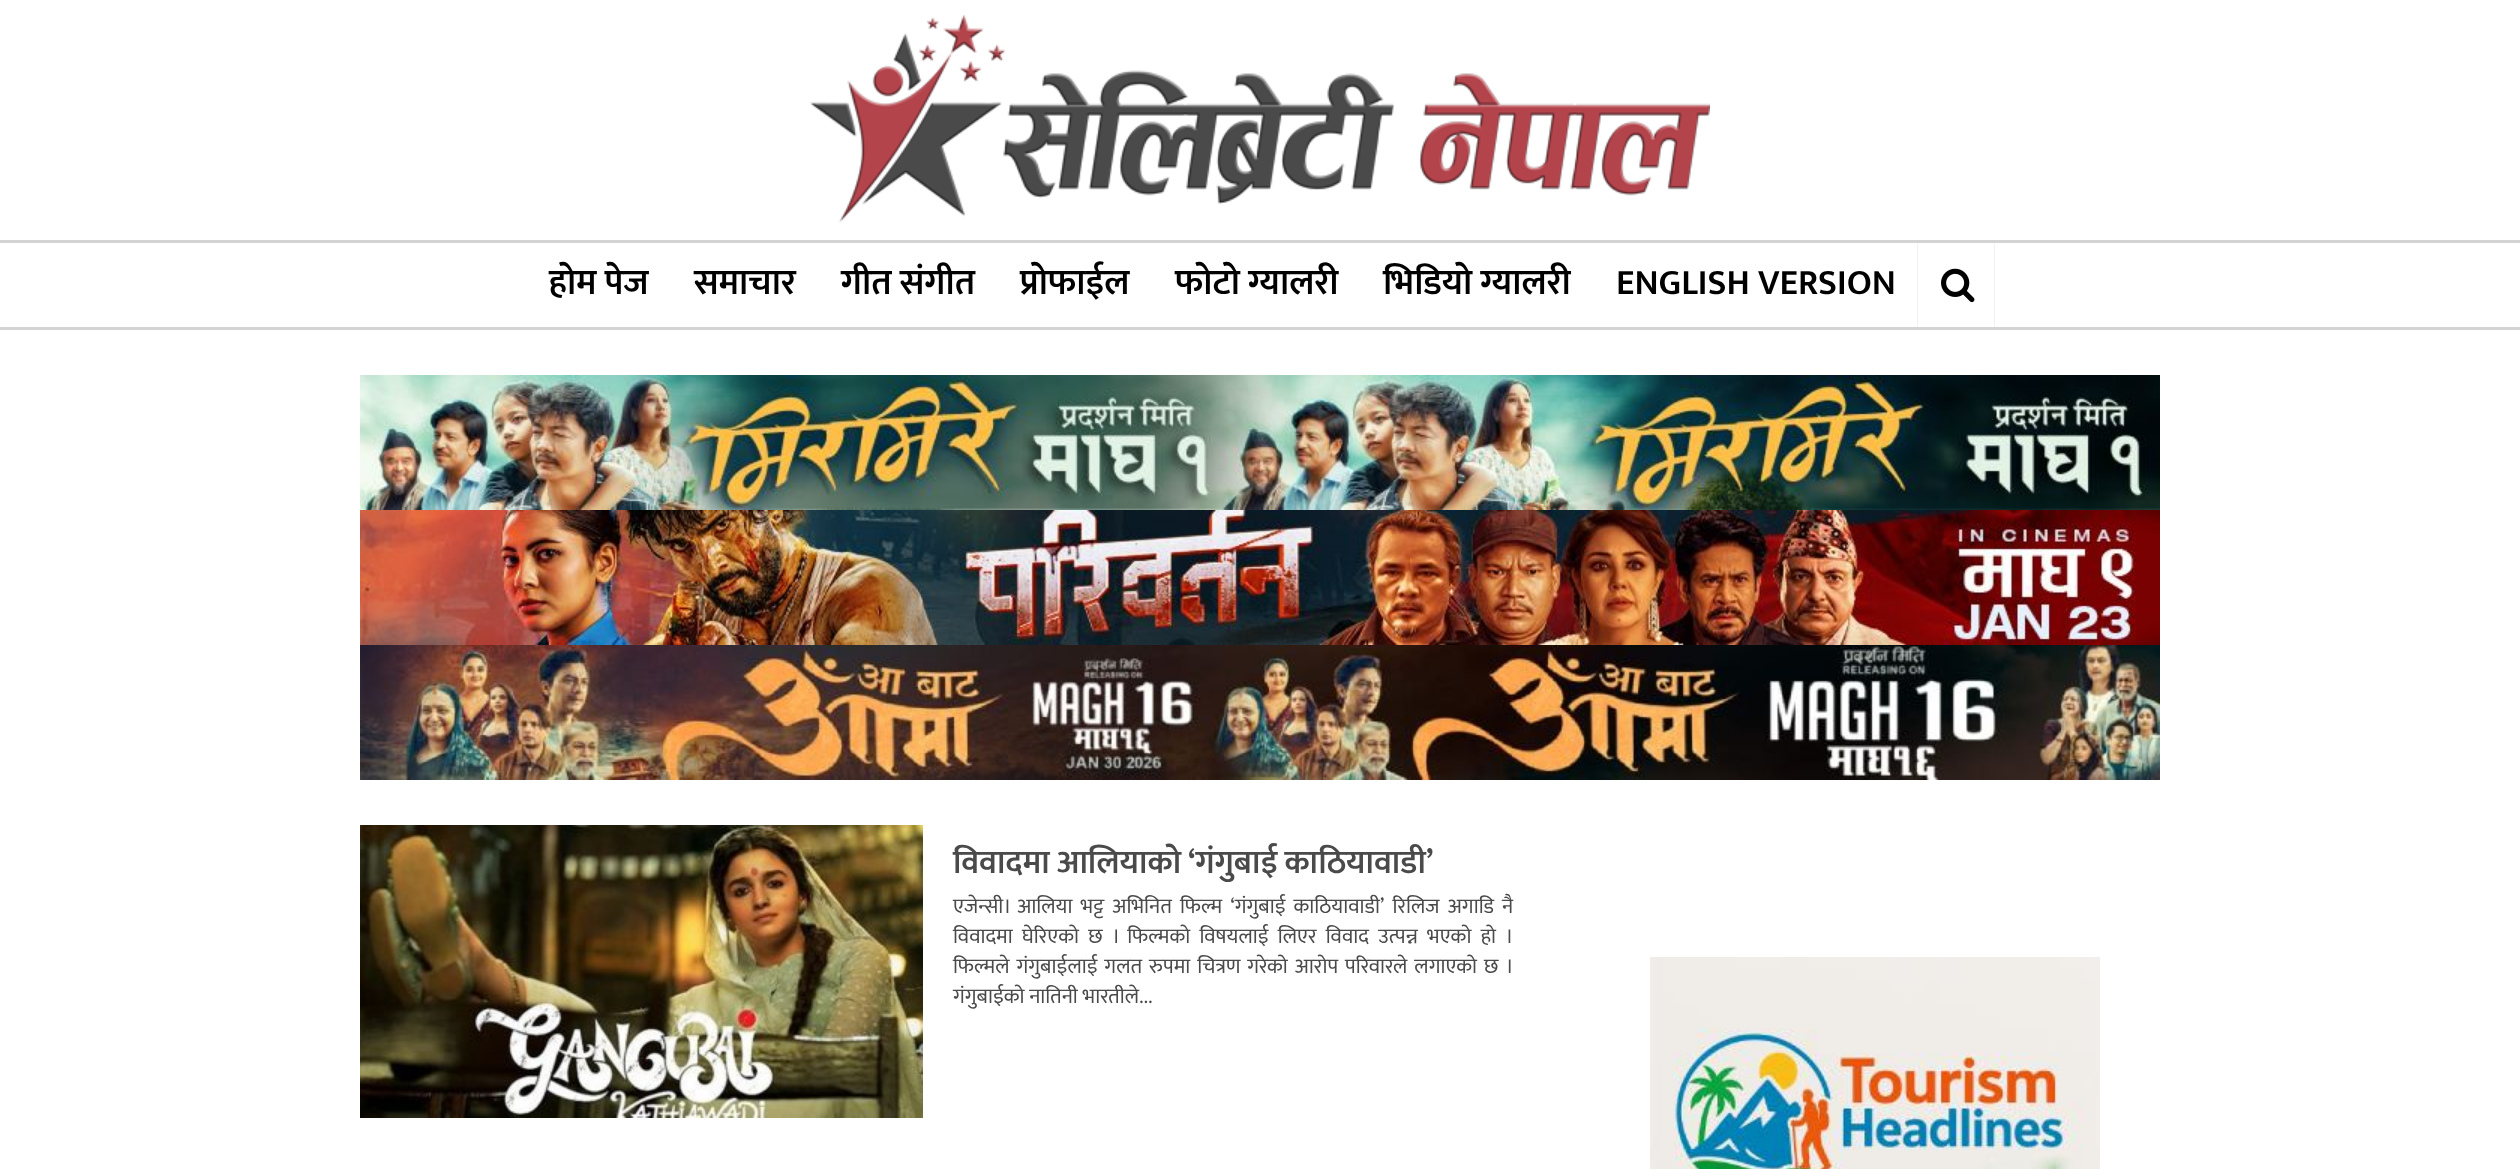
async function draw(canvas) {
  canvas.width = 2520;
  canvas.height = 1169;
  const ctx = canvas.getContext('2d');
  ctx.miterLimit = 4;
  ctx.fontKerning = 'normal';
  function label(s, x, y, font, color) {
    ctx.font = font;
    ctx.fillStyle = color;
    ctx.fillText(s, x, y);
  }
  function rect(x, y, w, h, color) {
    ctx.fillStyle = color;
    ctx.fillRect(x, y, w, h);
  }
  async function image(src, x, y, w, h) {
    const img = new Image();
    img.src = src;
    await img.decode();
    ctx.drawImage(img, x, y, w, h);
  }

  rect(0, 0, 2520, 1169, '#fff');
  await image('assets/img1.png', 810, 15, 900, 208);
  rect(0, 240, 2520, 3, '#d3d3d3');
  rect(0, 327, 2520, 3, '#d3d3d3');
  label('होम पेज', 549, 294, '600 36px Mukta', '#000');
  label('समाचार', 694, 294, '600 36px Mukta', '#000');
  label('गीत संगीत', 841, 294, '600 36px Mukta', '#000');
  label('प्रोफाईल', 1020, 294, '600 36px Mukta', '#000');
  label('फोटो ग्यालरी', 1175, 294, '600 36px Mukta', '#000');
  label('भिडियो ग्यालरी', 1383, 294, '600 36px Mukta', '#000');
  label('ENGLISH VERSION', 1616, 294, '600 36px Mukta', '#000');
  rect(1994, 243, 1, 84, '#f2f2f2');
  rect(1917, 243, 1, 84, '#f2f2f2');
  await image('assets/img2.png', 1941, 268, 34, 35);
  await image('assets/img3.png', 360, 375, 1800, 135);
  await image('assets/img4.png', 360, 510, 1800, 135);
  await image('assets/img5.png', 360, 645, 1800, 135);
  await image('assets/img6.png', 360, 825, 563, 293);
  ctx.wordSpacing = '-0.5px';
  label('विवादमा आलियाको ‘गंगुबाई काठियावाडी’', 953, 873, '600 33px Mukta', '#4a4a4a');
  ctx.wordSpacing = '3.5px';
  label('एजेन्सी। आलिया भट्ट अभिनित फिल्म ‘गंगुबाई काठियावाडी’ रिलिज अगाडि नै', 953, 913, '21px Mukta', '#4a4a4a');
  ctx.wordSpacing = '4.6px';
  label('विवादमा घेरिएको छ । फिल्मको विषयलाई लिएर विवाद उत्पन्न भएको हो ।', 953, 943, '21px Mukta', '#4a4a4a');
  ctx.wordSpacing = '2.25px';
  label('फिल्मले गंगुबाईलाई गलत रुपमा चित्रण गरेको आरोप परिवारले लगाएको छ ।', 953, 973, '21px Mukta', '#4a4a4a');
  ctx.wordSpacing = '0px';
  label('गंगुबाईको नातिनी भारतीले...', 953, 1003, '21px Mukta', '#4a4a4a');
  await image('assets/img7.png', 1650, 957, 450, 212);
}

draw(document.querySelector('canvas'));
